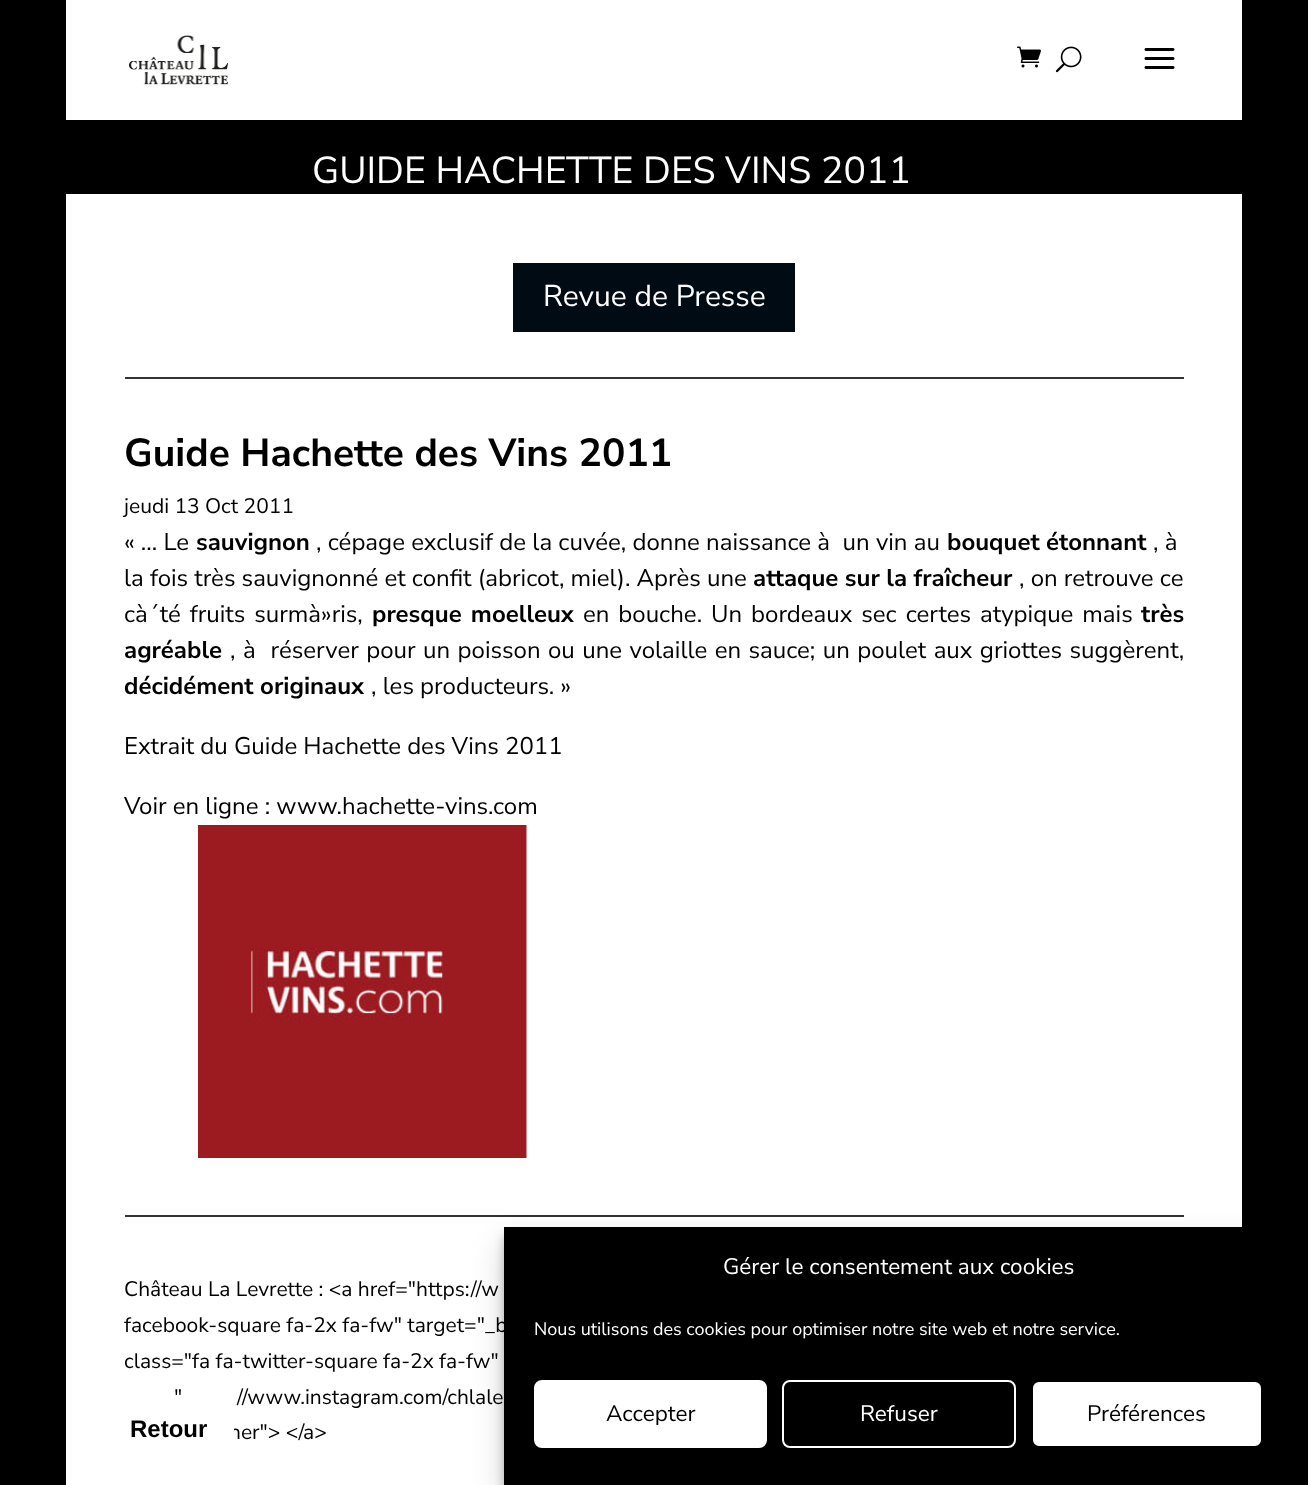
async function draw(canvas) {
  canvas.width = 1308;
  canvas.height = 1485;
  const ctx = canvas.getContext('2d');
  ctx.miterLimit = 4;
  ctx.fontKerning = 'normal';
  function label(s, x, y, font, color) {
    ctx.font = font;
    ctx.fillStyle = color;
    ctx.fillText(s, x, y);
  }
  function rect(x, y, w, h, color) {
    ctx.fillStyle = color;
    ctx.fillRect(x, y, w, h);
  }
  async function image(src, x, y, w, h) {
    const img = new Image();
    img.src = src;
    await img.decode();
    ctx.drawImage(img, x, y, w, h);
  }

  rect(0, 0, 1308, 1485, '#000');
  rect(66, 0, 1176, 120, '#fff');
  await image('assets/img1.png', 129, 35, 99, 50);
  await image('assets/img2.png', 1017, 46, 24, 22);
  await image('assets/img3.png', 1055, 46, 27, 27);
  await image('assets/img4.png', 1144, 48, 31, 21);
  label('GUIDE HACHETTE DES VINS 2011', 312, 183, '37.5px Nunito Sans', '#fff');
  rect(66, 194, 1176, 1291, '#fff');
  rect(125, 377, 1059, 2, '#333');
  rect(513, 263, 282, 69, '#000b14');
  label('Revue de Presse', 543, 306, '30px Nunito Sans', '#fff');
  label('Guide Hachette des Vins 2011', 124, 466, 'bold 39px Nunito Sans', '#000');
  label('jeudi 13 Oct 2011', 124, 513, '21px Nunito Sans', '#000');
  label('« … Le', 124, 550, '24px Nunito Sans', '#000');
  label('sauvignon', 196, 550, 'bold 24px Nunito Sans', '#000');
  ctx.wordSpacing = '0.1px';
  label(', cépage exclusif de la cuvée, donne naissance à  un vin au', 316, 550, '24px Nunito Sans', '#000');
  ctx.wordSpacing = '0px';
  label('bouquet étonnant', 947, 550, 'bold 24px Nunito Sans', '#000');
  label(', à', 1153, 550, '24px Nunito Sans', '#000');
  label('la fois très sauvignonné et confit (abricot, miel). Après une', 124, 586, '24px Nunito Sans', '#000');
  label('attaque sur la fraîcheur', 753, 586, 'bold 24px Nunito Sans', '#000');
  label(', on retrouve ce', 1019, 586, '24px Nunito Sans', '#000');
  ctx.wordSpacing = '2.75px';
  label('cà´té fruits surmà»ris,', 124, 622, '24px Nunito Sans', '#000');
  label('presque moelleux', 372, 622, 'bold 24px Nunito Sans', '#000');
  label('en bouche. Un bordeaux sec certes atypique mais', 583, 622, '24px Nunito Sans', '#000');
  ctx.wordSpacing = '0px';
  label('très', 1141, 622, 'bold 24px Nunito Sans', '#000');
  label('agréable', 124, 658, 'bold 24px Nunito Sans', '#000');
  ctx.wordSpacing = '1.25px';
  label(', à  réserver pour un poisson ou une volaille en sauce; un poulet aux griottes suggèrent,', 230, 658, '24px Nunito Sans', '#000');
  ctx.wordSpacing = '0px';
  label('décidément originaux', 124, 694, 'bold 24px Nunito Sans', '#000');
  label(', les producteurs. »', 371, 694, '24px Nunito Sans', '#000');
  label('Extrait du Guide Hachette des Vins 2011', 124, 754, '24px Nunito Sans', '#000');
  label('Voir en ligne : www.hachette-vins.com', 124, 814, '24px Nunito Sans', '#000');
  await image('assets/img5.png', 198, 825, 329, 333);
  rect(125, 1215, 1059, 2, '#333');
  label('Château La Levrette : <a href="https://w', 124, 1296, '21px Nunito Sans', '#000');
  label('facebook-square fa-2x fa-fw" target="_b', 124, 1332, '21px Nunito Sans', '#000');
  label('class="fa fa-twitter-square fa-2x fa-fw"', 124, 1368, '21px Nunito Sans', '#000');
  label('"', 174, 1404, '21px Nunito Sans', '#000');
  label('//www.instagram.com/chlale', 237, 1404, '21px Nunito Sans', '#000');
  label('ner"> <\/a>', 229, 1439, '21px Nunito Sans', '#000');
  rect(230, 1428, 4, 11, '#fff');
  label('Retour', 130, 1437, 'bold 24px Liberation Sans', '#000');
  ctx.fillStyle = '#0000003b';
  ctx.filter = 'blur(4.5px)';
  ctx.beginPath();
  ctx.rect(504, 1236, 789, 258);
  ctx.fill();
  ctx.filter = 'none';
  ctx.fillStyle = '#00000030';
  ctx.filter = 'blur(15px)';
  ctx.beginPath();
  ctx.rect(504, 1242, 789, 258);
  ctx.fill();
  ctx.filter = 'none';
  rect(504, 1227, 738, 258, '#000');
  label('Gérer le consentement aux cookies', 723, 1274, '22.5px Nunito Sans', '#fff');
  label('Nous utilisons des cookies pour optimiser notre site web et notre service.', 534, 1335, '18px Nunito Sans', '#fff');
  ctx.beginPath();
  ctx.roundRect(535, 1381, 231, 66, 7);
  ctx.fill();
  ctx.strokeStyle = '#fff';
  ctx.lineWidth = 2;
  ctx.stroke();
  label('Accepter', 606, 1421, '22.5px Nunito Sans', '#000');
  ctx.beginPath();
  ctx.roundRect(783, 1381, 232, 66, 7);
  ctx.stroke();
  label('Refuser', 860, 1421, '22.5px Nunito Sans', '#fff');
  ctx.beginPath();
  ctx.roundRect(1032, 1381, 230, 66, 7);
  ctx.fill();
  ctx.strokeStyle = '#000';
  ctx.stroke();
  label('Préférences', 1087, 1421, '22.5px Nunito Sans', '#000');
}

draw(document.querySelector('canvas'));
